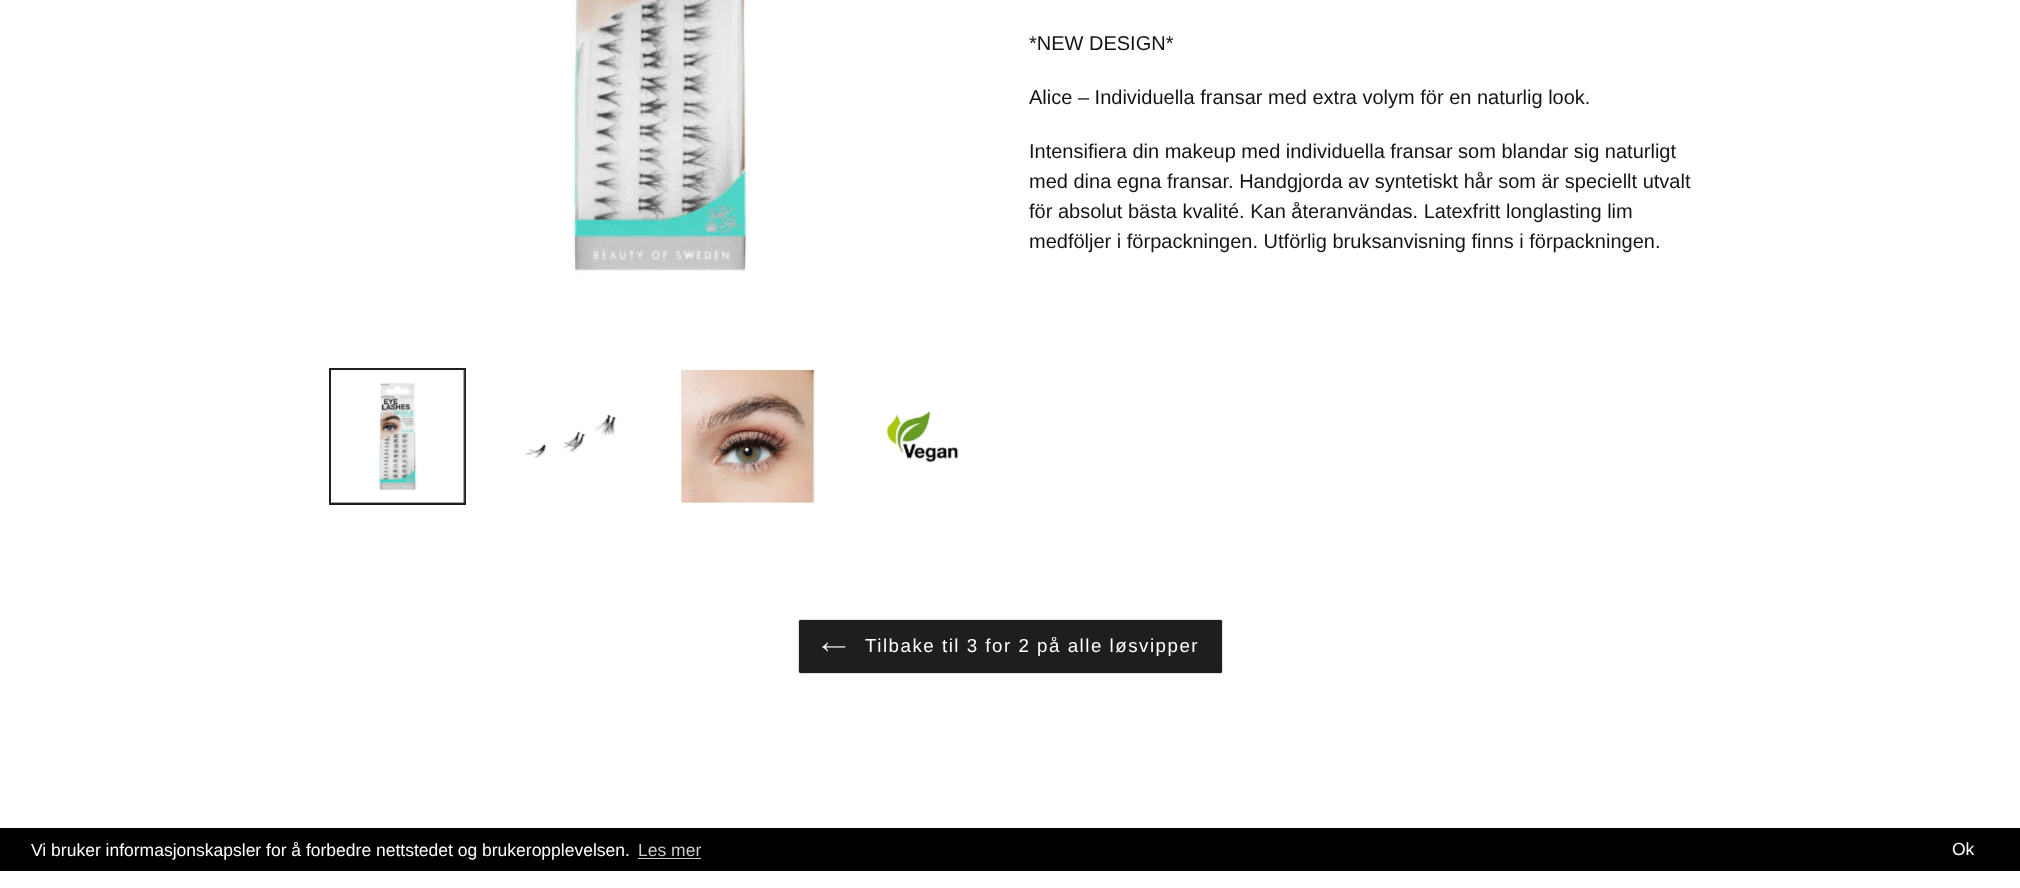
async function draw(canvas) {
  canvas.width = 2020;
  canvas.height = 888;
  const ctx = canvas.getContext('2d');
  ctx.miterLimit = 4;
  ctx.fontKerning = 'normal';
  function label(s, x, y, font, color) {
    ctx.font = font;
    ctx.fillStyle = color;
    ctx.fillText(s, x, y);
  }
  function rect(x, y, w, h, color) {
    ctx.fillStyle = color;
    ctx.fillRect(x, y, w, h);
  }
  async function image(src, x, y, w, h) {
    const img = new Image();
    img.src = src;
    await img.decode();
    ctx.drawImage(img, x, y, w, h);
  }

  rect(0, 0, 2020, 888, '#fff');
  await image('assets/img1.png', 571, 0, 180, 274);
  ctx.strokeStyle = '#1e1e1e';
  ctx.lineWidth = 3;
  ctx.strokeRect(330.5, 369.5, 134, 134);
  await image('assets/img2.png', 331, 370, 134, 133);
  await image('assets/img3.png', 523, 414, 94, 45);
  await image('assets/img4.png', 681, 370, 134, 133);
  await image('assets/img5.png', 886, 410, 73, 53);
  label('*NEW DESIGN*', 1029, 50, '20px Liberation Sans', '#141414');
  label('Alice – Individuella fransar med extra volym för en naturlig look.', 1029, 104, '20px Liberation Sans', '#141414');
  label('Intensifiera din makeup med individuella fransar som blandar sig naturligt', 1029, 158, '20px Liberation Sans', '#141414');
  label('med dina egna fransar. Handgjorda av syntetiskt hår som är speciellt utvalt', 1029, 188, '20px Liberation Sans', '#141414');
  label('för absolut bästa kvalité. Kan återanvändas. Latexfritt longlasting lim', 1029, 218, '20px Liberation Sans', '#141414');
  label('medföljer i förpackningen. Utförlig bruksanvisning finns i förpackningen.', 1029, 248, '20px Liberation Sans', '#141414');
  ctx.fillStyle = '#1e1e1e';
  ctx.beginPath();
  ctx.roundRect(798.5, 619.5, 424, 54, 2);
  ctx.fill();
  ctx.strokeStyle = '#e3e3e3';
  ctx.lineWidth = 1;
  ctx.stroke();
  await image('assets/img6.png', 822, 642, 24, 10);
  ctx.letterSpacing = '1.5px';
  label('Tilbake til 3 for 2 på alle løsvipper', 865, 652, '18.75px Liberation Sans', '#fff');
  rect(0, 828, 2020, 43, '#000');
  ctx.letterSpacing = '0px';
  label('Vi bruker informasjonskapsler for å forbedre nettstedet og brukeropplevelsen.', 31, 856, '17.5px Liberation Sans', '#fff');
  label('Les mer', 638, 856, '17.5px Liberation Sans', '#ccc');
  rect(638, 858, 63, 1, '#ccc');
  label('Ok', 1952, 855, '17.5px Liberation Sans', '#fff');
}

draw(document.querySelector('canvas'));
